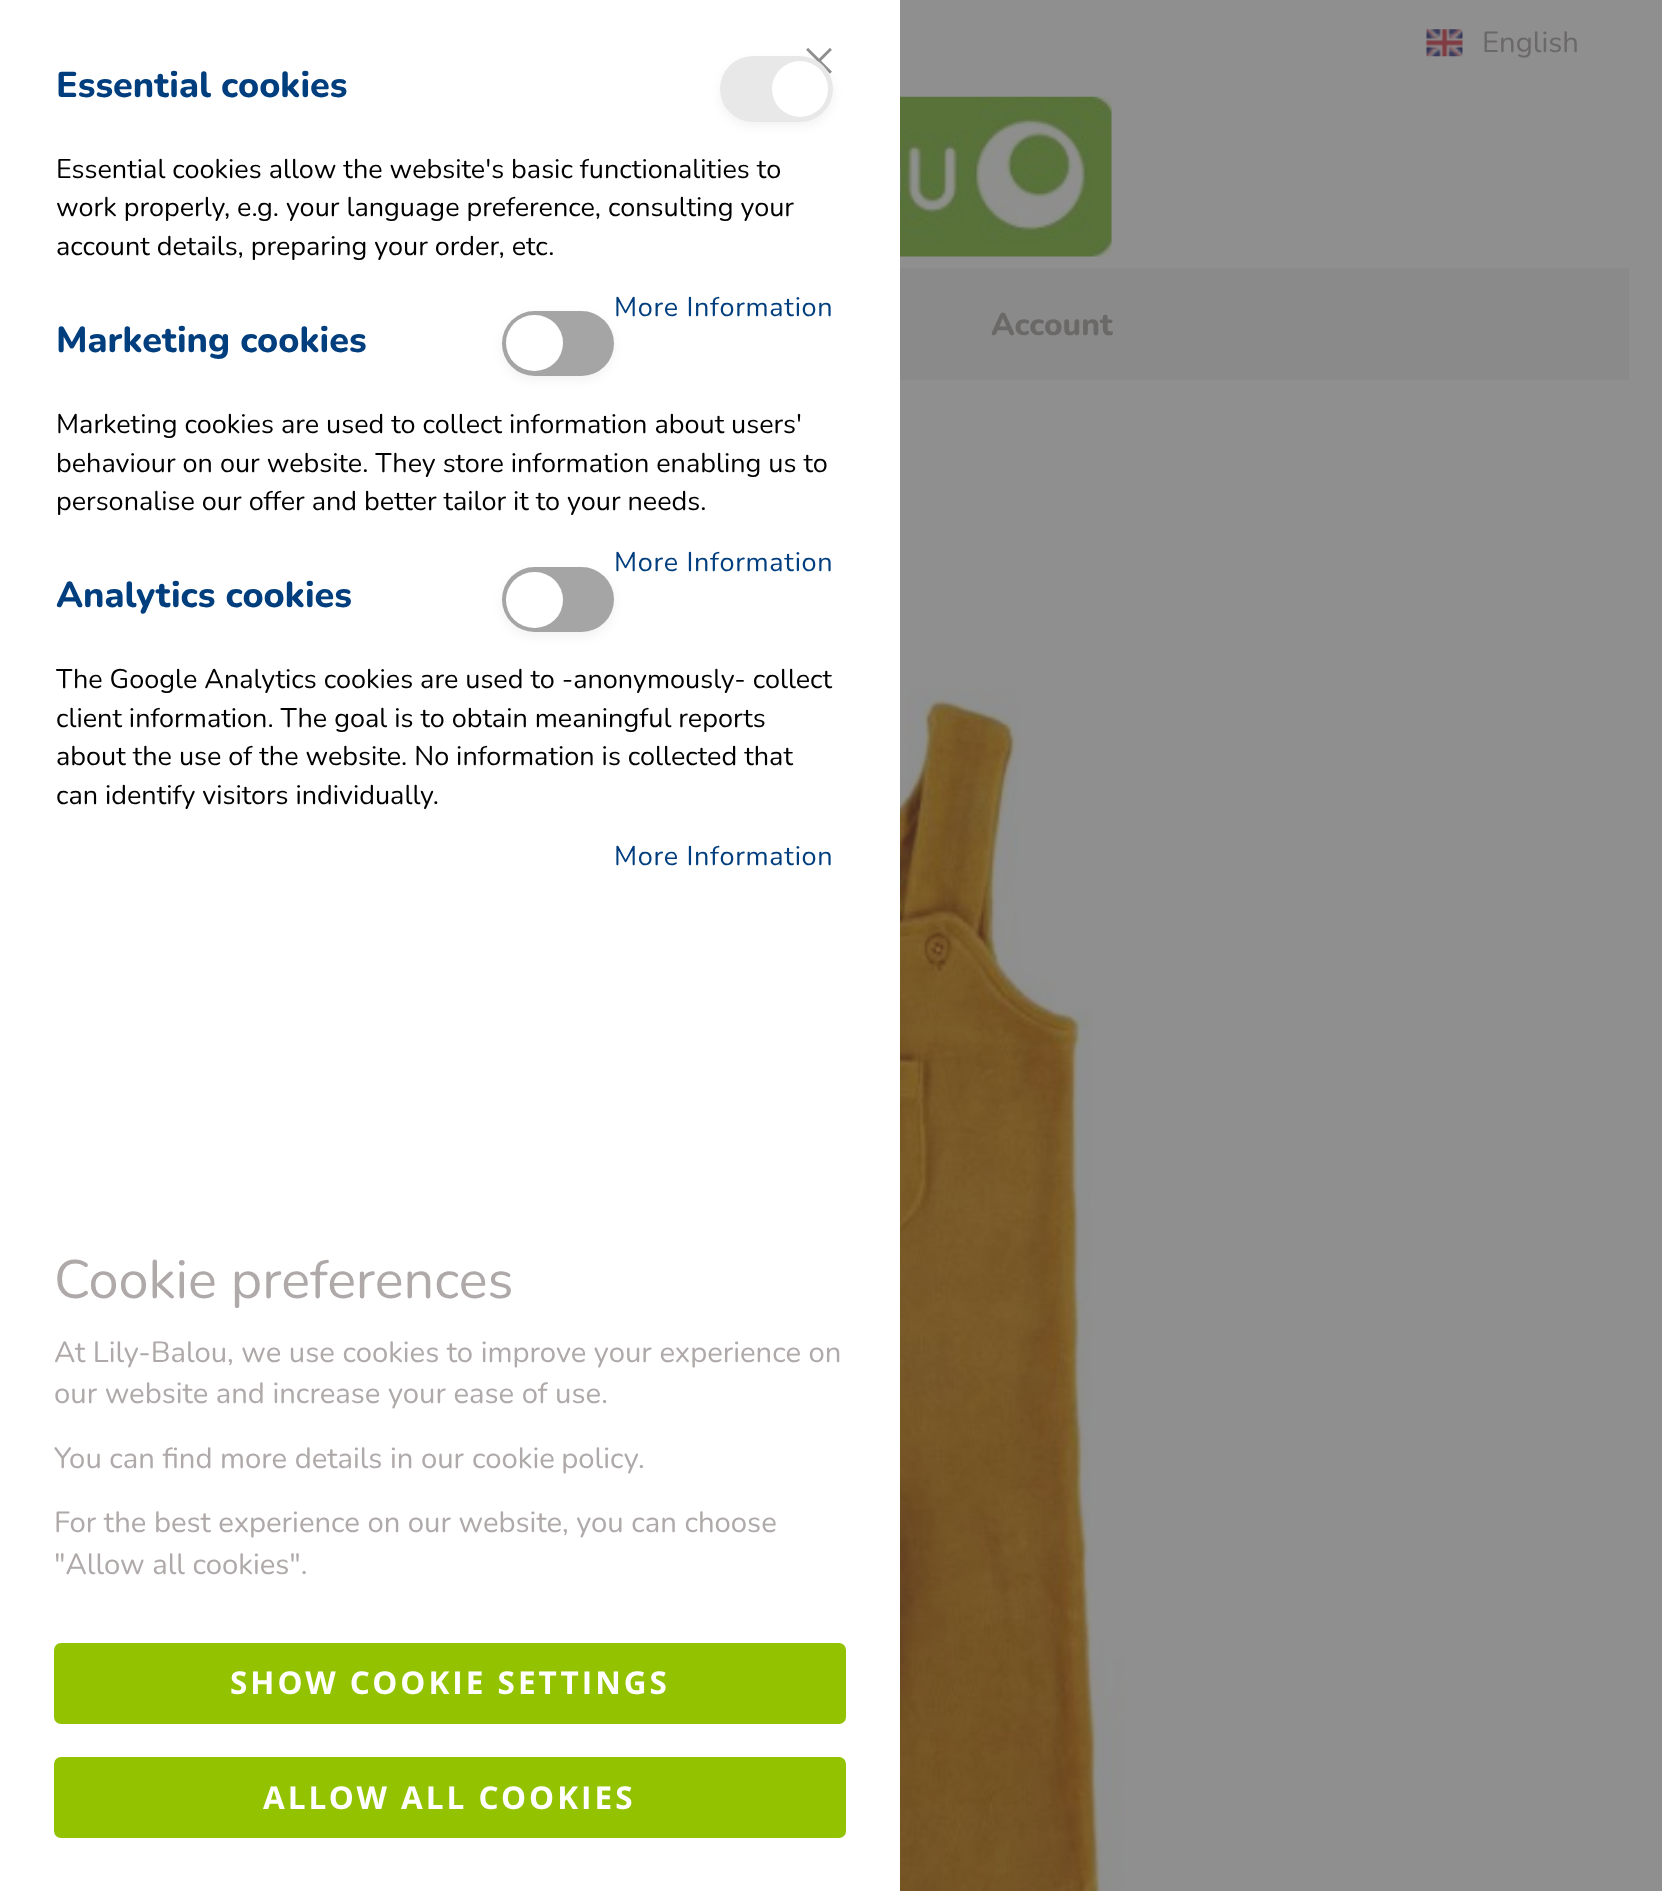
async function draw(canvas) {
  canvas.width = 1662;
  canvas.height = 1891;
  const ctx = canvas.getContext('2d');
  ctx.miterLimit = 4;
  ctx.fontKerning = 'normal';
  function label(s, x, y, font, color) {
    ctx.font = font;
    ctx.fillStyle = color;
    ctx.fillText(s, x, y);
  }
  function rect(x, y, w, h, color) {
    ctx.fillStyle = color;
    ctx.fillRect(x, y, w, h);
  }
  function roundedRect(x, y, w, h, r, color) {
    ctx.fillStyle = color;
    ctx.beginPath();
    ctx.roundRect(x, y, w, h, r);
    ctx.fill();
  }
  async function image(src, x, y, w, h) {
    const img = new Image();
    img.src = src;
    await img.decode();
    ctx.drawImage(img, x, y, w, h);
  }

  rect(0, 0, 1662, 1891, '#8f8f8f');
  rect(0, 0, 900, 1891, '#fff');
  await image('assets/img1.png', 806, 48, 26, 26);
  label('Essential cookies', 56, 97, '800 36px Nunito', '#003e7e');
  ctx.fillStyle = '#0000000d';
  ctx.filter = 'blur(5.5px)';
  ctx.beginPath();
  ctx.roundRect(720, 61, 113, 65, 32.5);
  ctx.fill();
  ctx.filter = 'none';
  roundedRect(720, 56, 113, 66, 33, '#e8e8e8');
  ctx.fillStyle = '#fff';
  ctx.beginPath();
  ctx.arc(800, 89, 28, 0, 2 * Math.PI);
  ctx.fill();
  label('Essential cookies allow the website\'s basic functionalities to', 56, 178, '27px Nunito', '#000');
  label('work properly, e.g. your language preference, consulting your', 56, 216, '27px Nunito', '#000');
  label('account details, preparing your order, etc.', 56, 255, '27px Nunito', '#000');
  ctx.letterSpacing = '0.7px';
  label('More Information', 614, 316, '27px Nunito', '#003e7e');
  ctx.letterSpacing = '0px';
  label('Marketing cookies', 56, 352, '800 36px Nunito', '#003e7e');
  ctx.fillStyle = '#0000000d';
  ctx.filter = 'blur(5.5px)';
  ctx.beginPath();
  ctx.roundRect(502, 315, 112, 65, 32.5);
  ctx.fill();
  ctx.filter = 'none';
  roundedRect(502, 311, 112, 65, 32.5, '#a5a5a5');
  roundedRect(506, 315, 57, 56, 28, '#fff');
  label('Marketing cookies are used to collect information about users\'', 56, 433, '27px Nunito', '#000');
  label('behaviour on our website. They store information enabling us to', 56, 472, '27px Nunito', '#000');
  label('personalise our offer and better tailor it to your needs.', 56, 510, '27px Nunito', '#000');
  ctx.letterSpacing = '0.7px';
  label('More Information', 614, 571, '27px Nunito', '#003e7e');
  ctx.letterSpacing = '0px';
  label('Analytics cookies', 56, 607, '800 36px Nunito', '#003e7e');
  ctx.fillStyle = '#0000000d';
  ctx.filter = 'blur(5.5px)';
  ctx.beginPath();
  ctx.roundRect(502, 572, 112, 65, 32.5);
  ctx.fill();
  ctx.filter = 'none';
  roundedRect(502, 567, 112, 65, 32.5, '#a5a5a5');
  roundedRect(506, 572, 57, 56, 28, '#fff');
  label('The Google Analytics cookies are used to -anonymously- collect', 56, 688, '27px Nunito', '#000');
  label('client information. The goal is to obtain meaningful reports', 56, 727, '27px Nunito', '#000');
  label('about the use of the website. No information is collected that', 56, 765, '27px Nunito', '#000');
  label('can identify visitors individually.', 56, 804, '27px Nunito', '#000');
  ctx.letterSpacing = '0.7px';
  label('More Information', 614, 865, '27px Nunito', '#003e7e');
  ctx.letterSpacing = '0px';
  label('Cookie preferences', 54, 1298, '54px Nunito', '#afa9a9');
  label('At Lily-Balou, we use cookies to improve your experience on', 54, 1362, '29.25px Nunito', '#afa9a9');
  label('our website and increase your ease of use.', 54, 1403, '29.25px Nunito', '#afa9a9');
  label('You can find more details in our', 54, 1468, '29.25px Nunito', '#afa9a9');
  ctx.wordSpacing = '-1px';
  label('cookie policy', 472, 1468, '29.25px Nunito', '#afa9a9');
  ctx.wordSpacing = '0px';
  label('.', 638, 1468, '29.25px Nunito', '#afa9a9');
  label('For the best experience on our website, you can choose', 54, 1532, '29.25px Nunito', '#afa9a9');
  label('"Allow all cookies".', 54, 1574, '29.25px Nunito', '#afa9a9');
  roundedRect(54, 1643, 792, 81, 7, '#93c300');
  ctx.letterSpacing = '3px';
  label('SHOW COOKIE SETTINGS', 230, 1694, 'bold 31.5px Open Sans', '#fff');
  roundedRect(54, 1757, 792, 81, 7, '#93c300');
  label('ALLOW ALL COOKIES', 263, 1809, 'bold 31.5px Open Sans', '#fff');
  await image('assets/img2.png', 1426, 29, 37, 28);
  ctx.letterSpacing = '0px';
  label('English', 1482, 52, '29.25px Nunito', '#6b6868');
  await image('assets/img3.png', 900, 96, 212, 161);
  rect(900, 268, 729, 112, '#8a8a8a');
  label('Account', 991, 335, '800 31.5px Nunito', '#6b6868');
  await image('assets/img4.png', 900, 687, 225, 1204);
}

draw(document.querySelector('canvas'));
